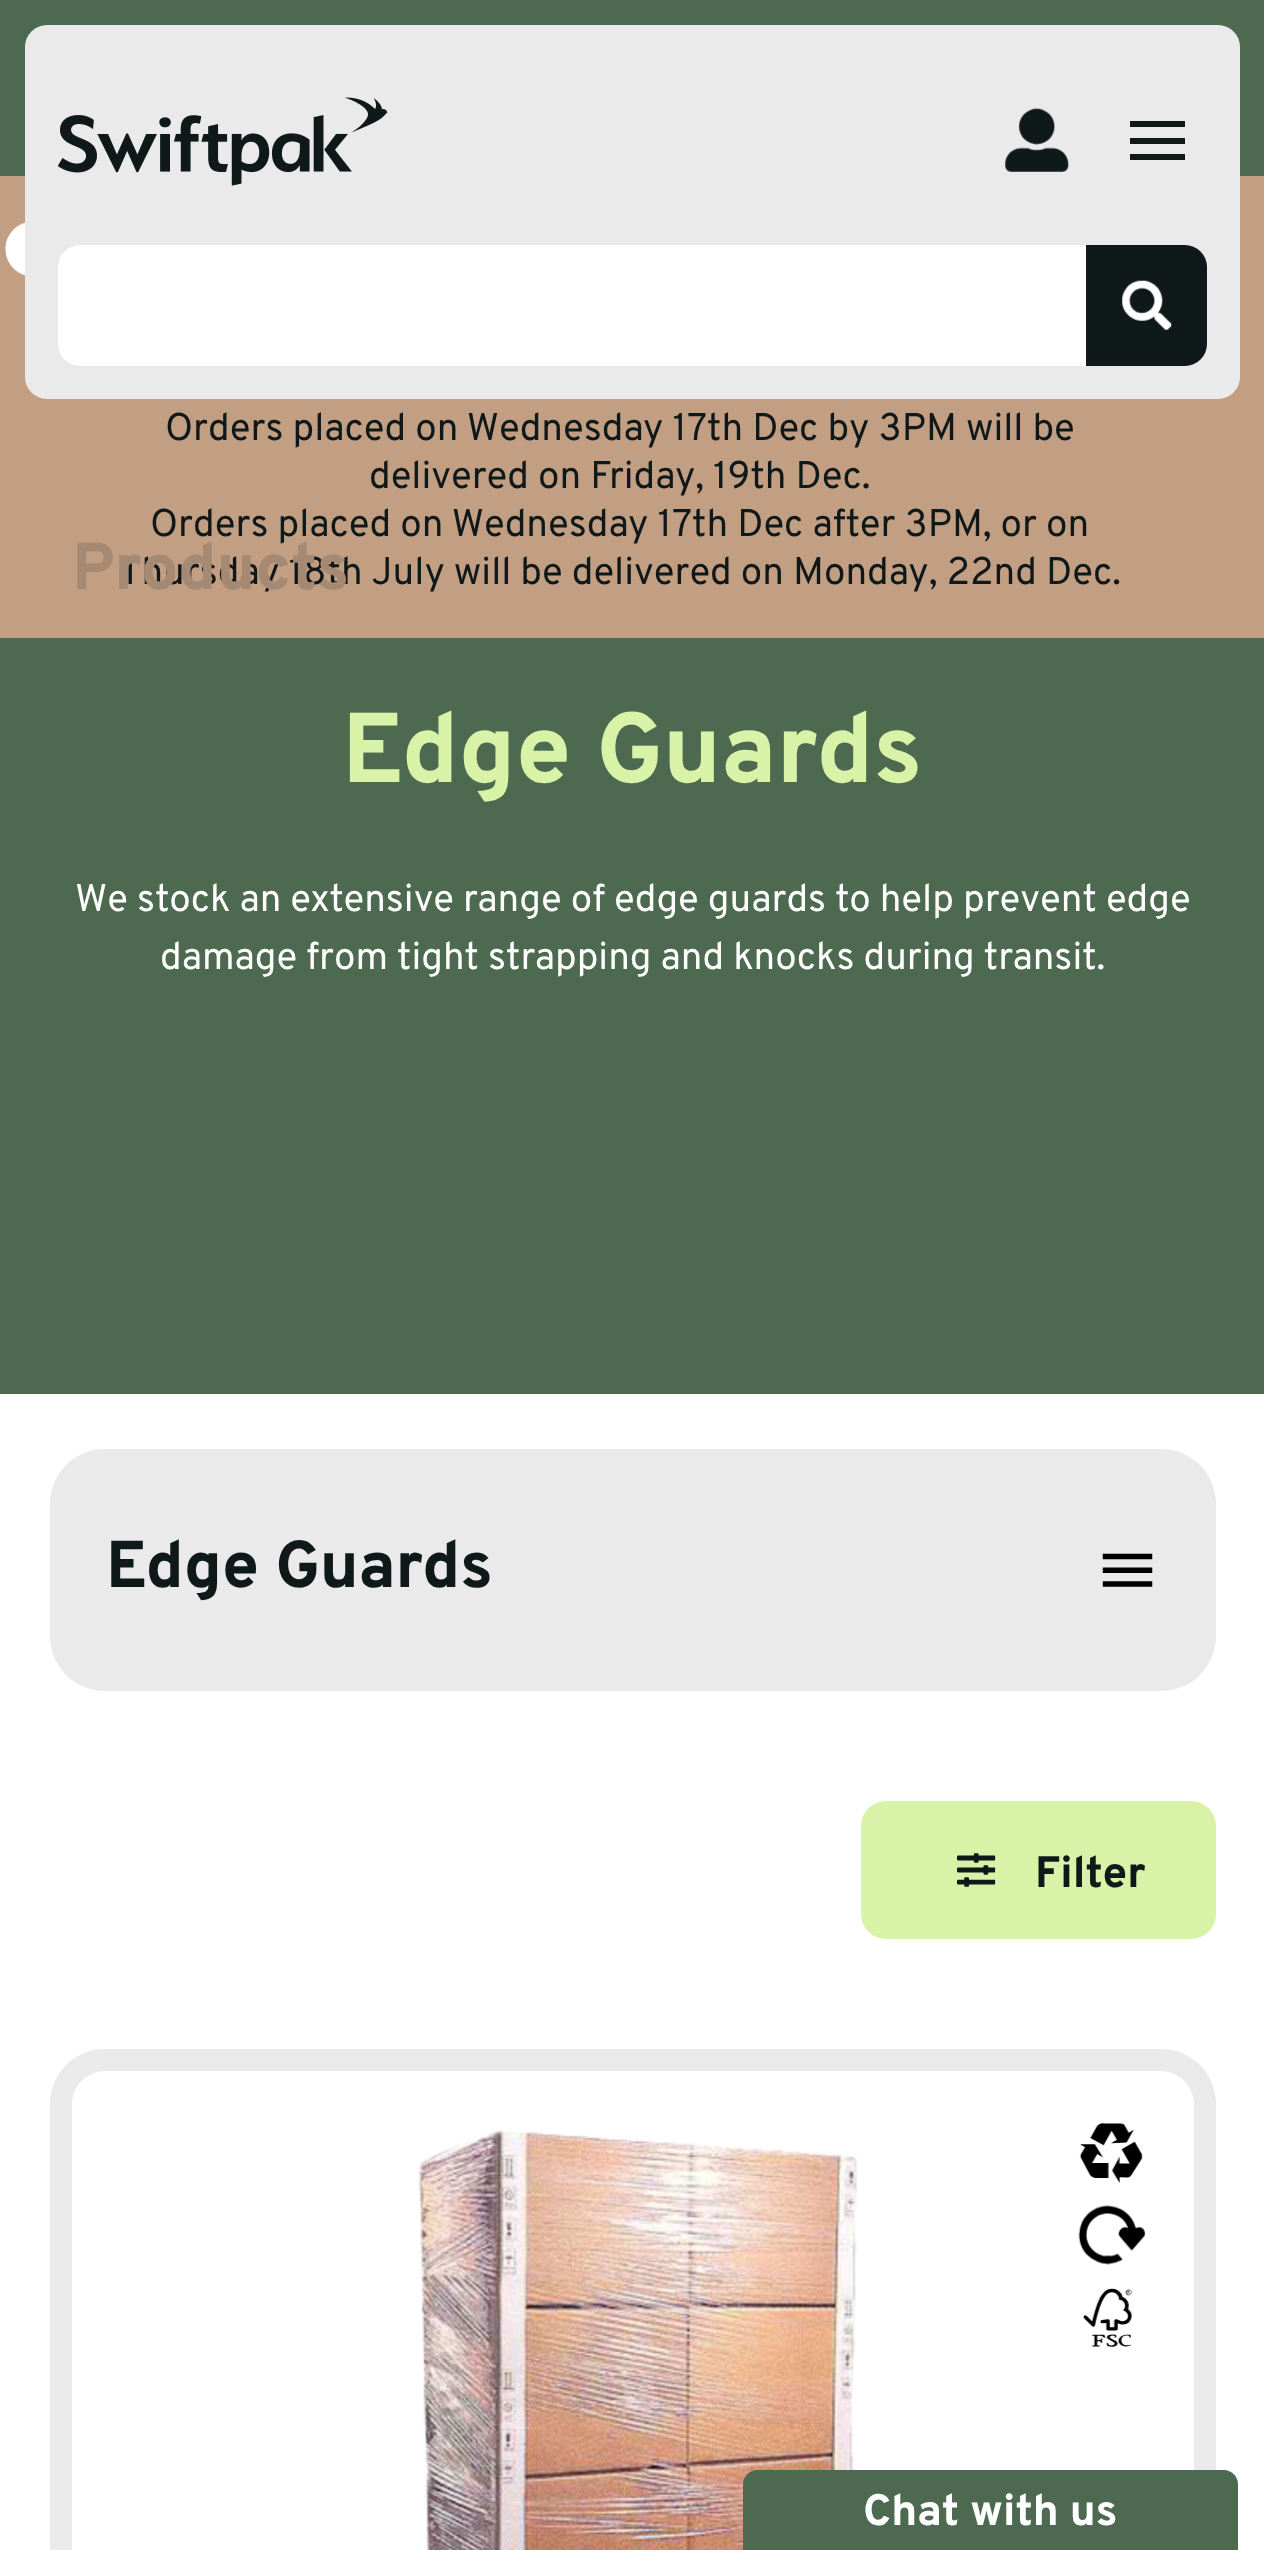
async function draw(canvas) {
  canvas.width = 1264;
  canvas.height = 2550;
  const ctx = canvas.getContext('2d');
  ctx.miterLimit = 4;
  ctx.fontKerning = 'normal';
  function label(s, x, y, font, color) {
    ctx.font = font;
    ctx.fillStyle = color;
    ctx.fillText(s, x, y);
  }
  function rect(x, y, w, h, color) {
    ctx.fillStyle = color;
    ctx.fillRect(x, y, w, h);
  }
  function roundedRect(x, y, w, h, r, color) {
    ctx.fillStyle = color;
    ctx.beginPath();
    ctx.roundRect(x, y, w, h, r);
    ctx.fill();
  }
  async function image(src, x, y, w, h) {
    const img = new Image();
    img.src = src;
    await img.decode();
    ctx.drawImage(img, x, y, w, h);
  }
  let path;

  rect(0, 0, 1264, 2550, '#fff');
  rect(0, 0, 1264, 1394, '#4d6a50');
  rect(0, 176, 1264, 462, '#c29e83');
  await image('assets/img1.png', 5, 222, 20, 54);
  label('Orders placed on Wednesday 17th Dec by 3PM will be', 165, 440, '38.5px Overpass', '#101919');
  label('delivered on Friday, 19th Dec.', 369, 488, '38.5px Overpass', '#101919');
  label('Orders placed on Wednesday 17th Dec after 3PM, or on', 150, 536, '38.5px Overpass', '#101919');
  label('Thursday 18th July will be delivered on Monday, 22nd Dec.', 119, 584, '38.5px Overpass', '#101919');
  label('Edge Guards', 342, 782, '800 99px Overpass', '#d8f2a7');
  label('We stock an extensive range of edge guards to help prevent edge', 75, 911, '38.5px Overpass', '#fff');
  label('damage from tight strapping and knocks during transit.', 160, 969, '38.5px Overpass', '#fff');
  roundedRect(50, 1449, 1166, 242, 55, '#eaeaea');
  label('Edge Guards', 106, 1587, '800 66px Overpass', '#101919');
  await image('assets/img2.png', 1102, 1553, 51, 34);
  roundedRect(861, 1801, 355, 138, 25, '#d8f2a7');
  await image('assets/img3.png', 957, 1853, 39, 34);
  label('Filter', 1035, 1887, '800 44px Overpass', '#101919');
  roundedRect(50, 2049, 1166, 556, 55, '#eaeaea');
  ctx.fillStyle = '#fff';
  path = new Path2D('M105 2071H1161C1179 2071 1194 2086 1194 2104V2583H72V2104C72 2086 87 2071 105 2071Z');
  ctx.fill(path);
  await image('assets/img4.png', 418, 2130, 440, 420);
  await image('assets/img5.png', 1079, 2123, 64, 60);
  await image('assets/img6.png', 1078, 2205, 68, 60);
  await image('assets/img7.png', 1083, 2288, 49, 59);
  roundedRect(25, 25, 1215, 374, 22, '#eaeaea');
  await image('assets/img8.png', 58, 97, 330, 89);
  await image('assets/img9.png', 1005, 108, 64, 64);
  rect(1130, 138, 55, 6, '#101919');
  rect(1130, 121, 55, 6, '#101919');
  rect(1130, 154, 55, 6, '#101919');
  roundedRect(58, 245, 1149, 121, 22, '#fff');
  ctx.fillStyle = '#101919';
  ctx.beginPath();
  ctx.roundRect(1086, 245, 121, 121, [0, 22, 22, 0]);
  ctx.fill();
  await image('assets/img10.png', 1122, 280, 50, 50);
  label('Products', 72, 589, '800 66px Overpass', '#a68972');
  ctx.fillStyle = '#4d6a50';
  path = new Path2D('M757 2470H1224C1231.5 2470 1238 2476.5 1238 2484V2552H743V2484C743 2476.5 749.5 2470 757 2470Z');
  ctx.fill(path);
  label('Chat with us', 863, 2525, '800 44px Overpass', '#fff');
}

draw(document.querySelector('canvas'));
